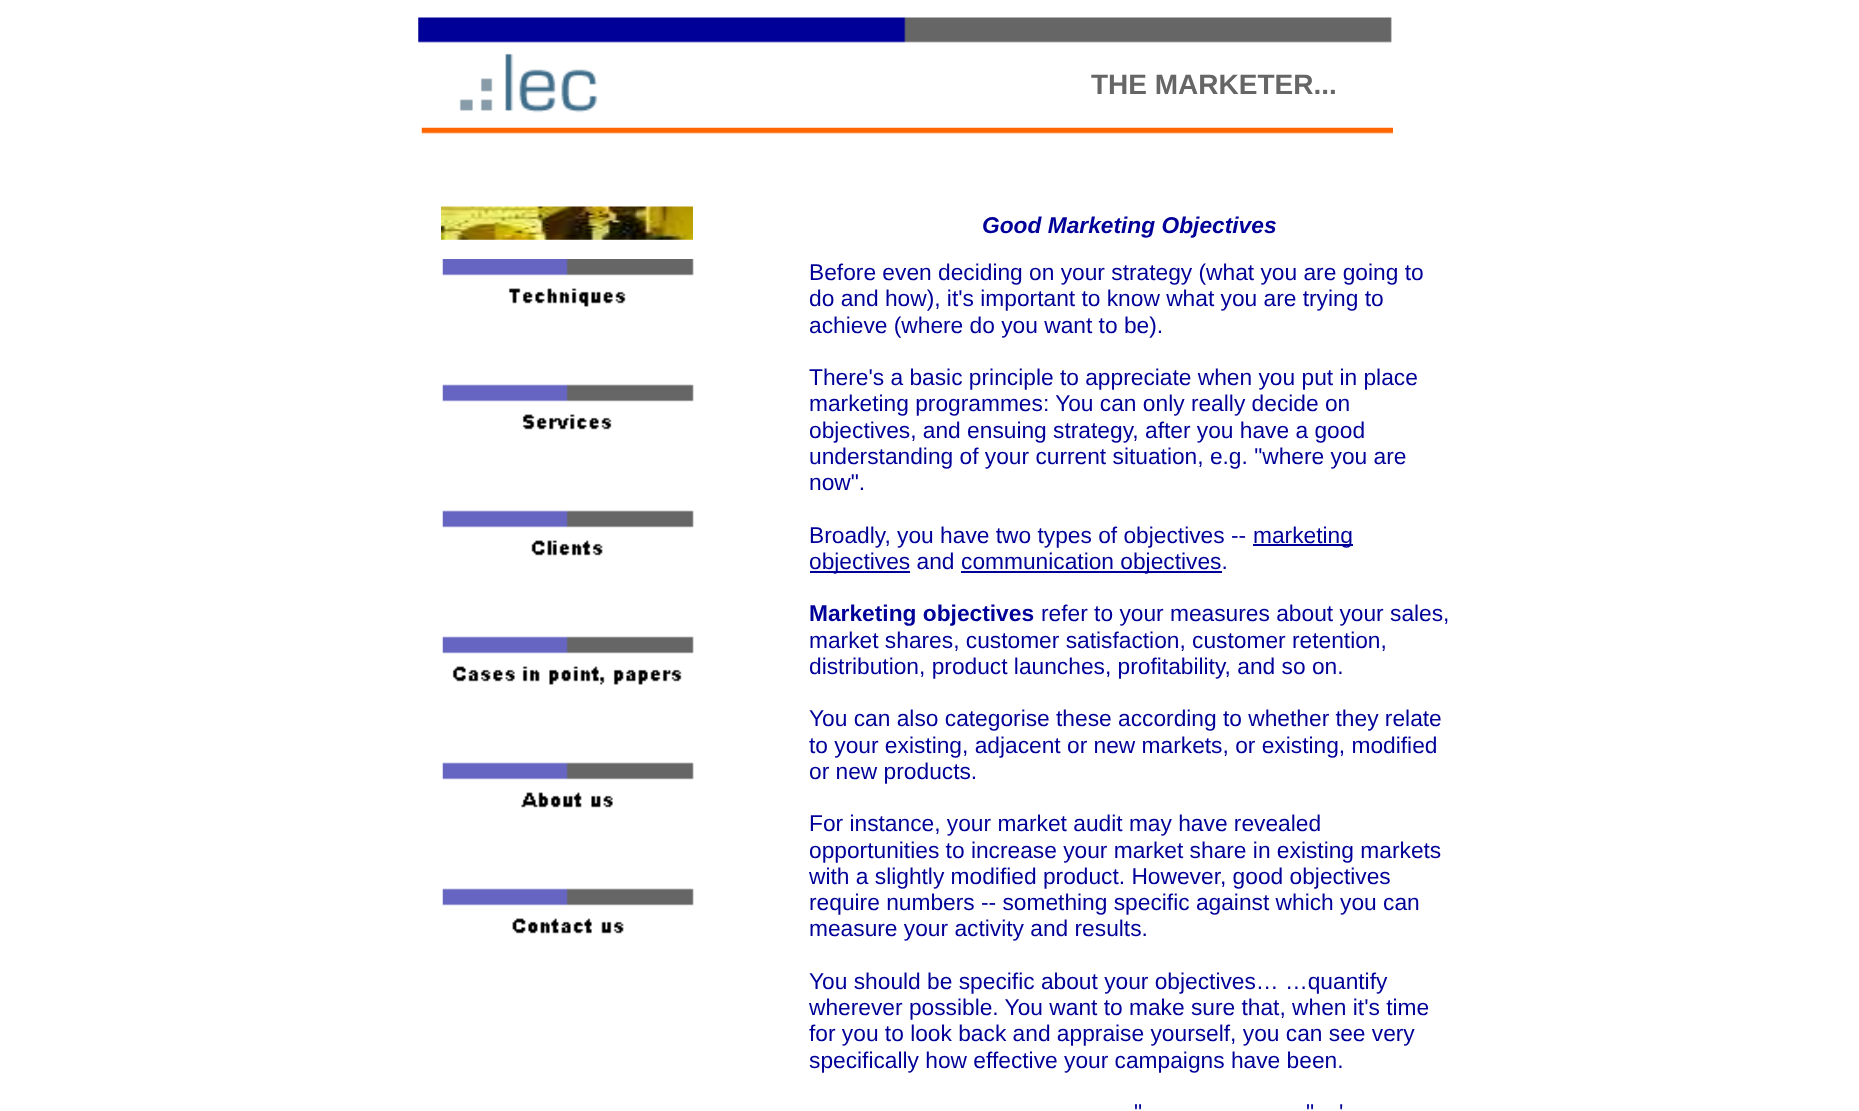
async function draw(canvas) {
  canvas.width = 1859;
  canvas.height = 1111;
  const ctx = canvas.getContext('2d');
  ctx.miterLimit = 4;
  ctx.fontKerning = 'normal';
  function label(s, x, y, font, color) {
    ctx.font = font;
    ctx.fillStyle = color;
    ctx.fillText(s, x, y);
  }
  function rect(x, y, w, h, color) {
    ctx.fillStyle = color;
    ctx.fillRect(x, y, w, h);
  }
  async function image(src, x, y, w, h) {
    const img = new Image();
    img.src = src;
    await img.decode();
    ctx.drawImage(img, x, y, w, h);
  }

  rect(0, 0, 1859, 1111, '#fff');
  await image('assets/img1.png', 418, 17, 974, 26);
  await image('assets/img2.png', 459, 53, 139, 60);
  label('THE MARKETER...', 1091, 94, 'bold 28px Liberation Sans', '#666');
  await image('assets/img3.png', 421, 127, 972, 7);
  await image('assets/img4.png', 441, 206, 252, 34);
  label('Good Marketing Objectives', 982, 233, 'italic bold 22.75px Liberation Sans', '#009');
  await image('assets/img5.png', 442, 259, 252, 675);
  label('Before even deciding on your strategy (what you are going to', 809, 280, '22.75px Liberation Sans', '#009');
  label('do and how), it\'s important to know what you are trying to', 809, 306, '22.75px Liberation Sans', '#009');
  label('achieve (where do you want to be).', 809, 333, '22.75px Liberation Sans', '#009');
  label('There\'s a basic principle to appreciate when you put in place', 809, 385, '22.75px Liberation Sans', '#009');
  label('marketing programmes: You can only really decide on', 809, 411, '22.75px Liberation Sans', '#009');
  label('objectives, and ensuing strategy, after you have a good', 809, 438, '22.75px Liberation Sans', '#009');
  label('understanding of your current situation, e.g. "where you are', 809, 464, '22.75px Liberation Sans', '#009');
  label('now".', 809, 490, '22.75px Liberation Sans', '#009');
  label('Broadly, you have two types of objectives --', 809, 543, '22.75px Liberation Sans', '#009');
  rect(1253, 544, 100, 2, '#009');
  label('marketing', 1253, 543, '22.75px Liberation Sans', '#009');
  rect(810, 571, 100, 2, '#009');
  label('objectives and', 809, 569, '22.75px Liberation Sans', '#009');
  rect(961, 571, 261, 2, '#009');
  label('communication objectives.', 961, 569, '22.75px Liberation Sans', '#009');
  label('Marketing objectives', 809, 621, 'bold 22.75px Liberation Sans', '#009');
  label('refer to your measures about your sales,', 1041, 621, '22.75px Liberation Sans', '#009');
  label('market shares, customer satisfaction, customer retention,', 809, 648, '22.75px Liberation Sans', '#009');
  label('distribution, product launches, profitability, and so on.', 809, 674, '22.75px Liberation Sans', '#009');
  label('You can also categorise these according to whether they relate', 809, 726, '22.75px Liberation Sans', '#009');
  label('to your existing, adjacent or new markets, or existing, modified', 809, 753, '22.75px Liberation Sans', '#009');
  label('or new products.', 809, 779, '22.75px Liberation Sans', '#009');
  label('For instance, your market audit may have revealed', 809, 831, '22.75px Liberation Sans', '#009');
  label('opportunities to increase your market share in existing markets', 809, 858, '22.75px Liberation Sans', '#009');
  label('with a slightly modified product. However, good objectives', 809, 884, '22.75px Liberation Sans', '#009');
  label('require numbers -- something specific against which you can', 809, 910, '22.75px Liberation Sans', '#009');
  label('measure your activity and results.', 809, 936, '22.75px Liberation Sans', '#009');
  label('You should be specific about your objectives… …quantify', 809, 989, '22.75px Liberation Sans', '#009');
  label('wherever possible. You want to make sure that, when it\'s time', 809, 1015, '22.75px Liberation Sans', '#009');
  label('for you to look back and appraise yourself, you can see very', 809, 1041, '22.75px Liberation Sans', '#009');
  label('specifically how effective your campaigns have been.', 809, 1068, '22.75px Liberation Sans', '#009');
  label('"', 1134, 1120, '22.75px Liberation Sans', '#009');
  label('"', 1306, 1120, '22.75px Liberation Sans', '#009');
  label('\'', 1339, 1120, '22.75px Liberation Sans', '#009');
}

draw(document.querySelector('canvas'));
